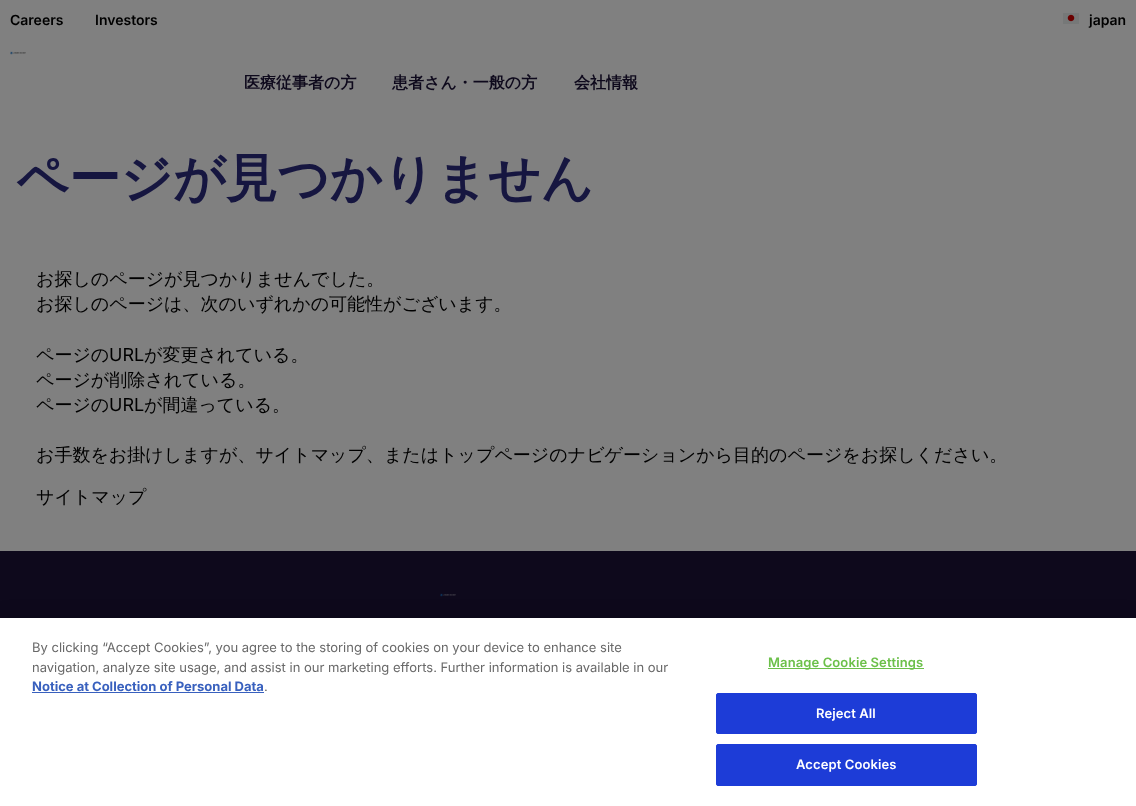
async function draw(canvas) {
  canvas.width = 1136;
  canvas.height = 806;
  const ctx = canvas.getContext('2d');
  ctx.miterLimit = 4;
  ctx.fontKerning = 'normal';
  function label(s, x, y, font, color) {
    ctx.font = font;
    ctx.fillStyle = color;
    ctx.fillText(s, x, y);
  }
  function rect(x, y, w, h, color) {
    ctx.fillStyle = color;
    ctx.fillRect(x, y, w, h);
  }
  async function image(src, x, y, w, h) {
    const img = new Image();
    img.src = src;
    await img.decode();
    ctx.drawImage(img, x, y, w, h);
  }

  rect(0, 0, 1136, 806, '#808080');
  label('Careers', 10, 25, '600 14px Inter', '#000');
  label('Investors', 95, 25, '600 14px Inter', '#000');
  await image('assets/img1.png', 1063, 13, 16, 11);
  label('japan', 1089, 25, '600 14px Inter', '#000');
  await image('assets/img2.png', 10, 51, 16, 4);
  label('医療従事者の方', 244, 88, 'bold 16px WenQuanYi Zen Hei', '#0e091c');
  label('患者さん・一般の方', 392, 88, 'bold 16px WenQuanYi Zen Hei', '#0e091c');
  label('会社情報', 574, 88, 'bold 16px WenQuanYi Zen Hei', '#0e091c');
  ctx.letterSpacing = '-0.25px';
  label('ページが見つかりません', 16, 196, 'bold 51.75px WenQuanYi Zen Hei', '#161640');
  ctx.letterSpacing = '0px';
  label('お探しのページが見つかりませんでした。', 36, 285, '500 18px WenQuanYi Zen Hei', '#000');
  label('お探しのページは、次のいずれかの可能性がございます。', 36, 310, '500 18px WenQuanYi Zen Hei', '#000');
  label('ページの', 36, 361, '500 18px WenQuanYi Zen Hei', '#000');
  label('URL', 109, 361, '18px Inter', '#000');
  label('が変更されている。', 144, 361, '500 18px WenQuanYi Zen Hei', '#000');
  label('ページが削除されている。', 36, 386, '500 18px WenQuanYi Zen Hei', '#000');
  label('ページの', 36, 411, '500 18px WenQuanYi Zen Hei', '#000');
  label('URL', 109, 411, '18px Inter', '#000');
  label('が間違っている。', 144, 411, '500 18px WenQuanYi Zen Hei', '#000');
  label('お手数をお掛けしますが、サイトマップ、またはトップページのナビゲーションから目的のページをお探しください。', 36, 461, '500 18px WenQuanYi Zen Hei', '#000');
  label('サイトマップ', 36, 503, '500 18px WenQuanYi Zen Hei', '#000');
  rect(0, 551, 1136, 67, '#0e091c');
  await image('assets/img3.png', 440, 593, 16, 4);
  ctx.fillStyle = '#00000033';
  ctx.filter = 'blur(9px)';
  ctx.beginPath();
  ctx.rect(0, 618, 1136, 188);
  ctx.fill();
  ctx.filter = 'none';
  rect(0, 618, 1136, 188, '#fff');
  label('By clicking “Accept Cookies”, you agree to the storing of cookies on your device to enhance site', 32, 652, '13px Inter', '#696969');
  label('navigation, analyze site usage, and assist in our marketing efforts. Further information is available in our', 32, 672, '13px Inter', '#696969');
  label('Notice at Collection of Personal Data', 32, 691, 'bold 13px Inter', '#3860be');
  rect(32, 692, 232, 1, '#3860be');
  label('.', 264, 691, '13px Inter', '#696969');
  rect(768, 668, 156, 1, '#6cc04a');
  ctx.letterSpacing = '0.1px';
  label('Manage Cookie Settings', 768, 667, '600 13px Inter', '#6cc04a');
  ctx.fillStyle = '#1d3cd7';
  ctx.beginPath();
  ctx.roundRect(716.5, 693.5, 260, 40, 1.5);
  ctx.fill();
  ctx.strokeStyle = '#1d3cd7';
  ctx.stroke();
  label('Reject All', 816, 718, '600 13px Inter', '#fff');
  ctx.fillStyle = '#1d3cd7';
  ctx.beginPath();
  ctx.roundRect(716.5, 744.5, 260, 41, 1.5);
  ctx.fill();
  ctx.stroke();
  label('Accept Cookies', 796, 769, '600 13px Inter', '#fff');
}

draw(document.querySelector('canvas'));
